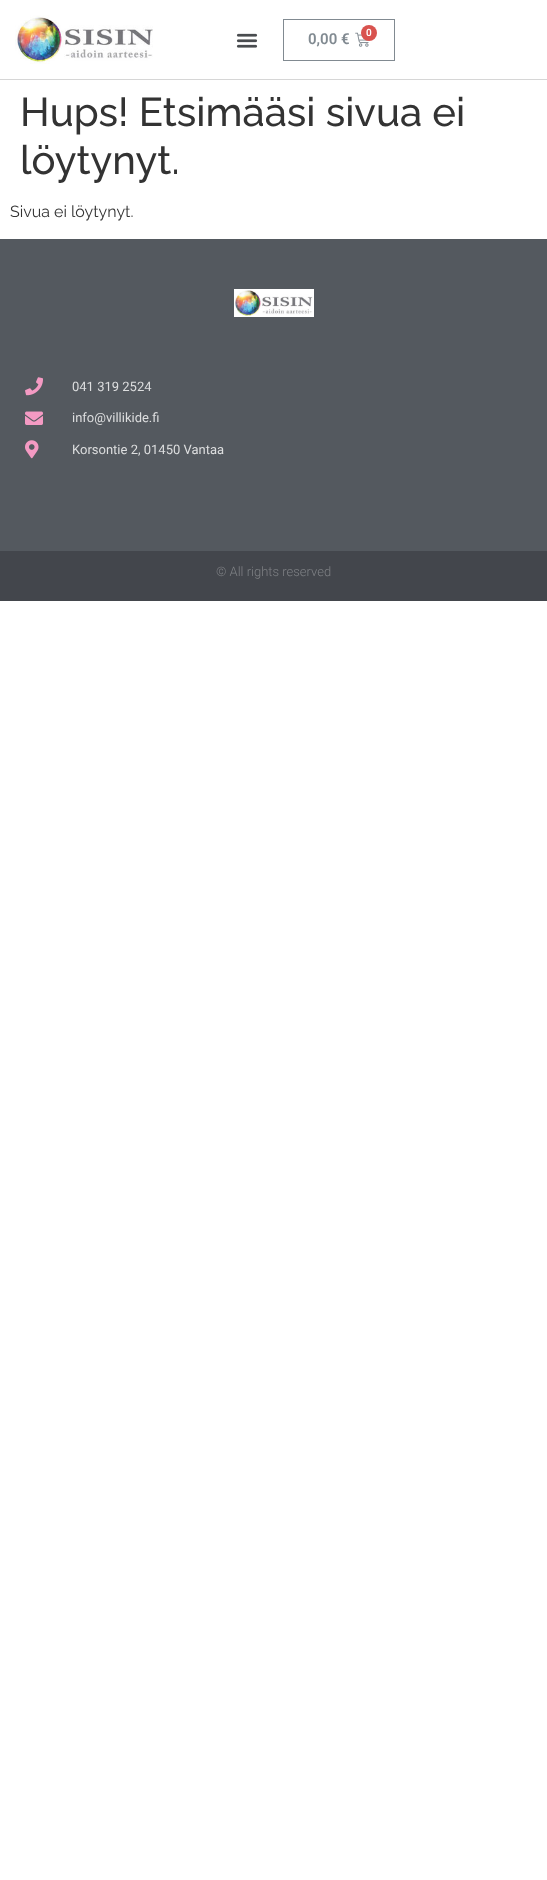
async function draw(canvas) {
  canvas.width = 547;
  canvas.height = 1880;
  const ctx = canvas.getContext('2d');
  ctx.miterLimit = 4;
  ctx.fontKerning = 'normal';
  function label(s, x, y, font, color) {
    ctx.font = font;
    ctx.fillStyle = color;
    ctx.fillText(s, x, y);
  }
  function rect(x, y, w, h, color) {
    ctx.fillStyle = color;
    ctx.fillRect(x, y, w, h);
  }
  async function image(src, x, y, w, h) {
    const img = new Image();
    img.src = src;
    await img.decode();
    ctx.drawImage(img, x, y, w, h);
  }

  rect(0, 0, 547, 1880, '#fff');
  rect(0, 79, 547, 1, '#d6d6d6');
  await image('assets/img1.png', 15, 15, 138, 49);
  await image('assets/img2.png', 236, 33, 22, 15);
  ctx.strokeStyle = '#818a91';
  ctx.strokeRect(283.5, 19.5, 111, 41);
  label('0,00 €', 308, 44, '600 15px Roboto', '#818a91');
  await image('assets/img3.png', 355, 32, 14, 15);
  ctx.fillStyle = '#d9534f';
  ctx.beginPath();
  ctx.arc(369, 33, 8, 0, 2 * Math.PI);
  ctx.fill();
  label('0', 366, 36, '600 10px Roboto', '#fff');
  label('Hups! Etsimääsi sivua ei', 20, 126, '500 40px Raleway', '#333');
  label('löytynyt.', 20, 174, '500 40px Raleway', '#333');
  label('Sivua ei löytynyt.', 10, 217, '16px Raleway', '#333');
  rect(0, 239, 547, 312, '#54595f');
  await image('assets/img4.png', 234, 289, 80, 28);
  await image('assets/img5.png', 25, 377, 18, 19);
  label('041 319 2524', 72, 391, '13px Roboto', '#dddedf');
  await image('assets/img6.png', 25, 411, 18, 14);
  label('info@villikide.fi', 72, 422, '13px Roboto', '#dddedf');
  await image('assets/img7.png', 25, 440, 14, 19);
  label('Korsontie 2, 01450 Vantaa', 72, 454, '13px Roboto', '#dddedf');
  rect(0, 551, 547, 50, '#43464c');
  label('© All rights reserved', 216, 576, '300 13px Roboto', '#7f8185');
}

draw(document.querySelector('canvas'));
